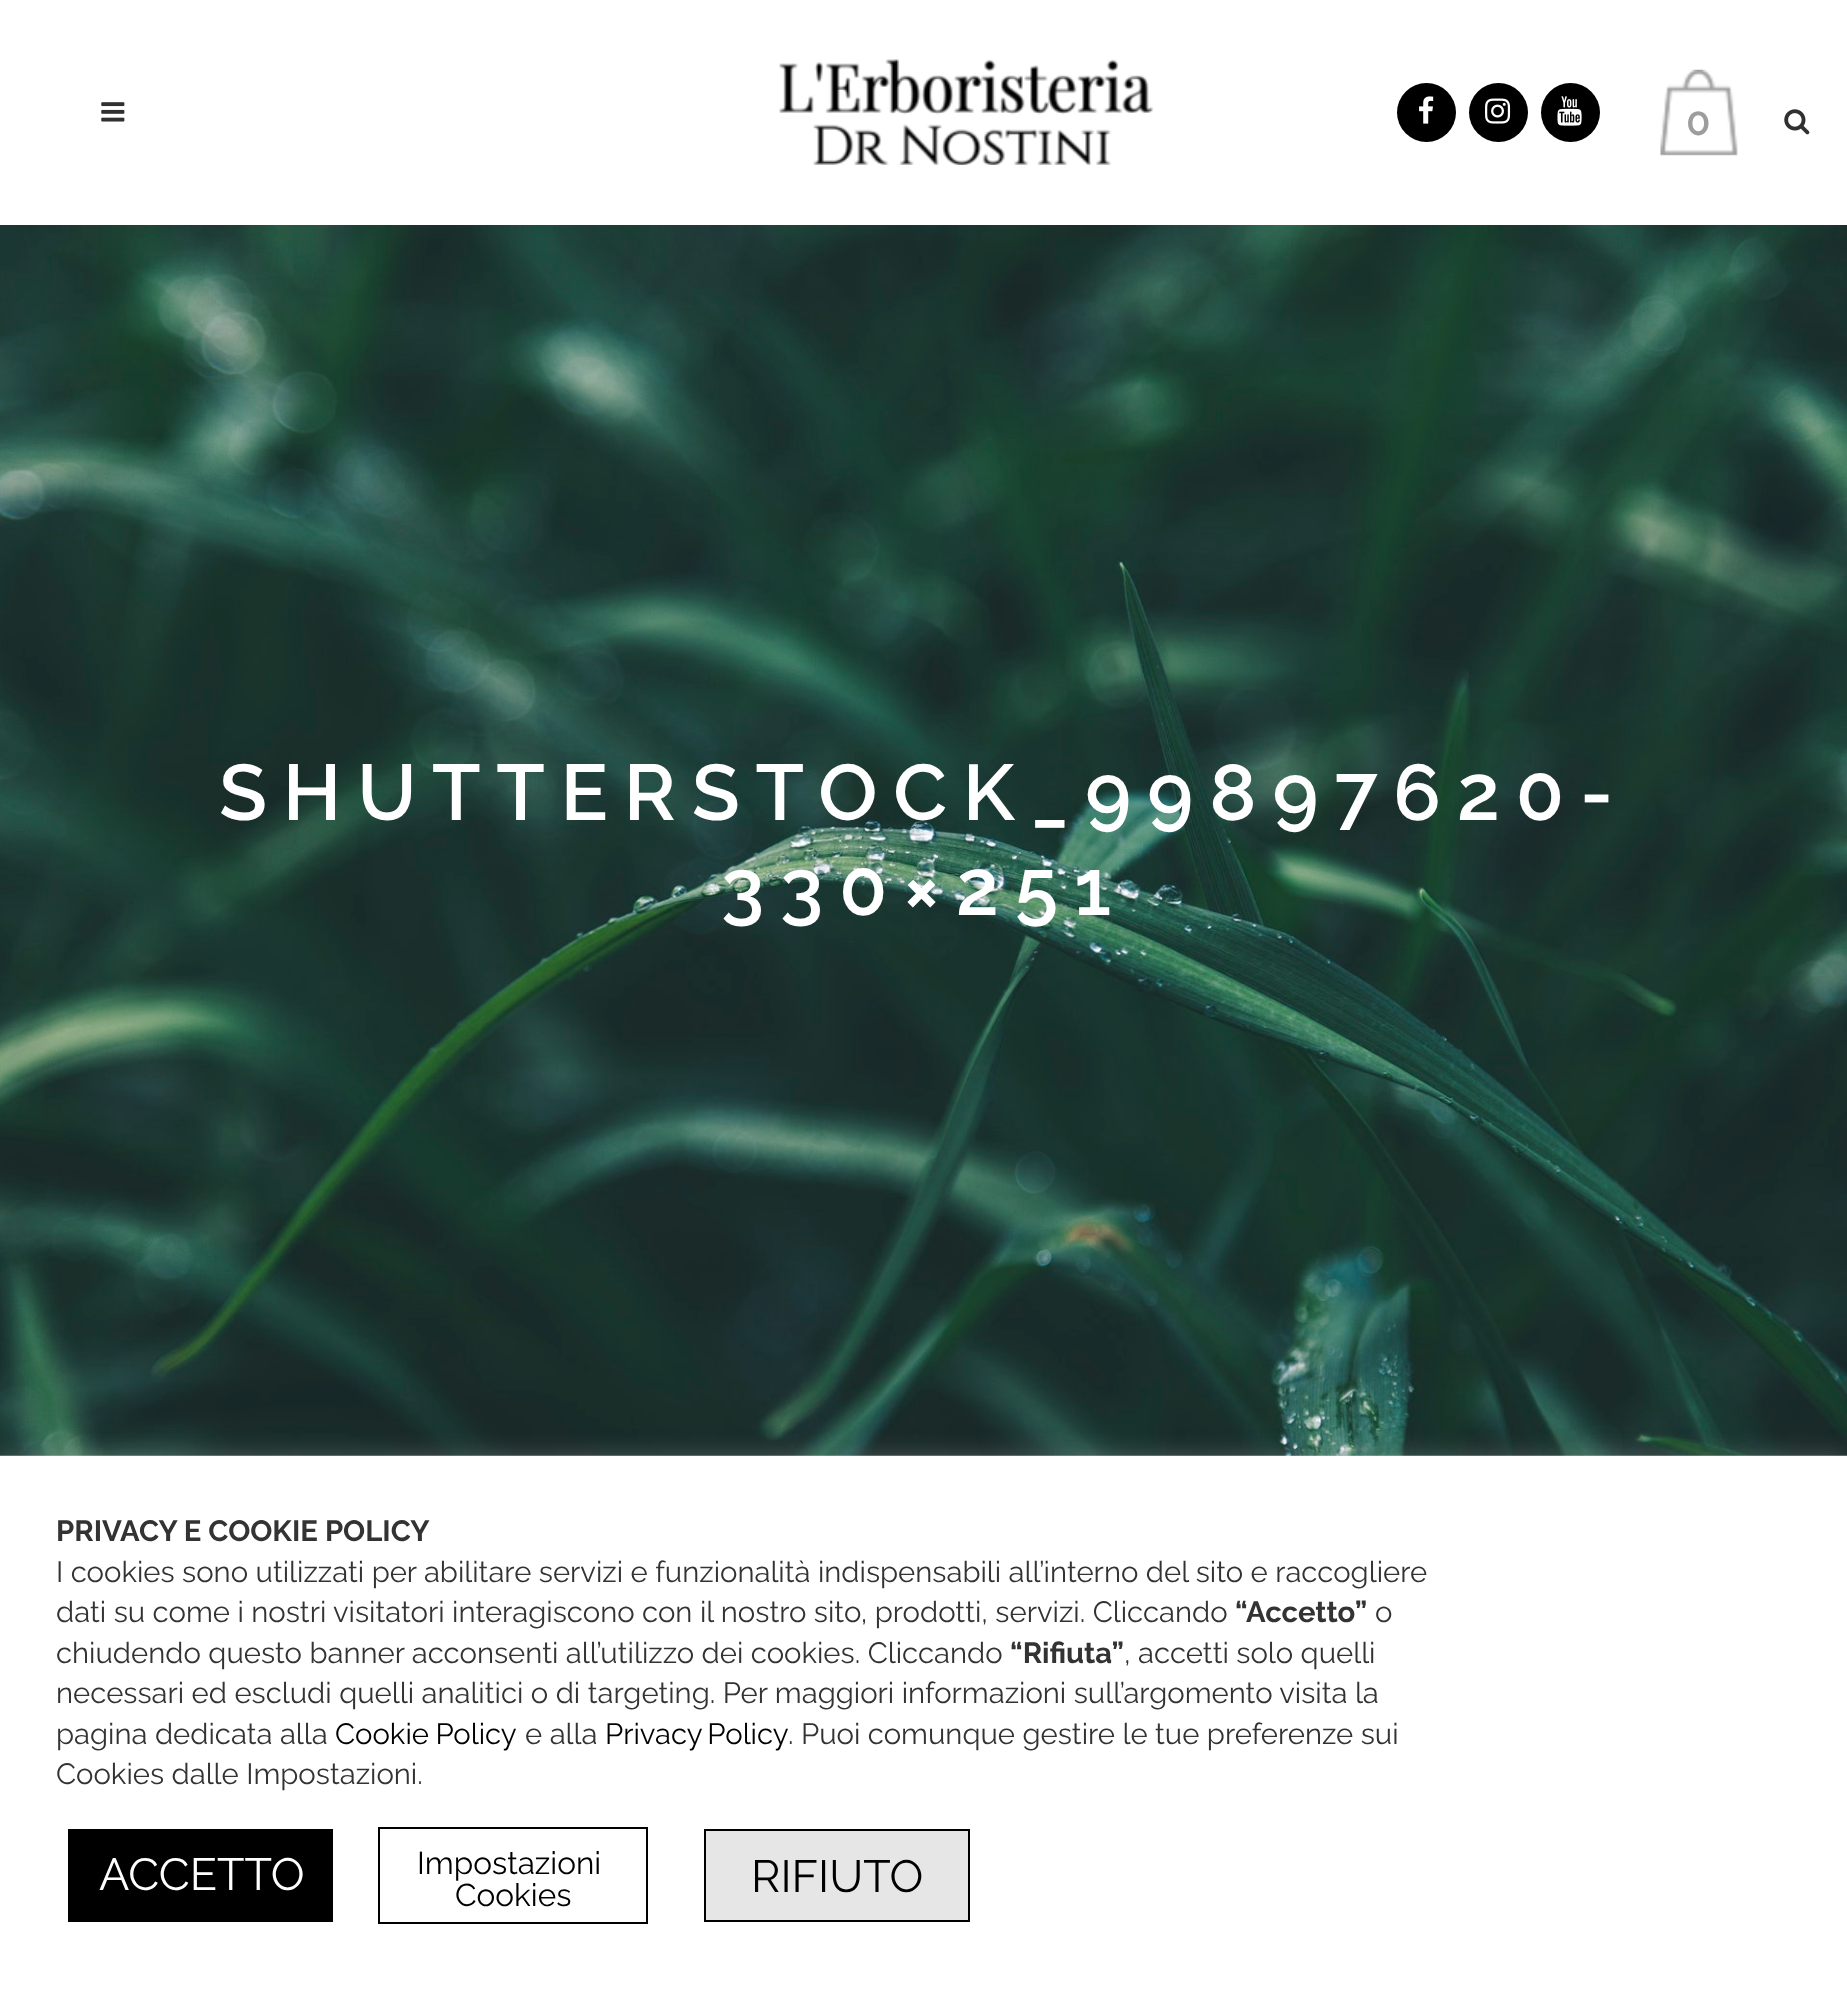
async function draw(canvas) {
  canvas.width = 1847;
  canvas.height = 1989;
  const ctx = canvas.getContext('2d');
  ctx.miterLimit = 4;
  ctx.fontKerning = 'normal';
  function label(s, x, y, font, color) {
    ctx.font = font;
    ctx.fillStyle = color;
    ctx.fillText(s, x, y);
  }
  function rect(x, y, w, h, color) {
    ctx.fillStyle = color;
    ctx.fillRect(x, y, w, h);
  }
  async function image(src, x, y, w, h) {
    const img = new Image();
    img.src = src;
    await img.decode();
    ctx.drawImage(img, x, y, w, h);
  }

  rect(0, 0, 1847, 1989, '#fff');
  await image('assets/img1.png', 101, 102, 24, 20);
  await image('assets/img2.png', 779, 59, 374, 106);
  ctx.fillStyle = '#000';
  ctx.beginPath();
  ctx.arc(1426.5, 112.5, 29.5, 0, 2 * Math.PI);
  ctx.fill();
  await image('assets/img3.png', 1419, 96, 15, 28);
  ctx.beginPath();
  ctx.arc(1498.5, 112.5, 29.5, 0, 2 * Math.PI);
  ctx.fill();
  await image('assets/img4.png', 1485, 98, 26, 26);
  ctx.beginPath();
  ctx.arc(1570.5, 112.5, 29.5, 0, 2 * Math.PI);
  ctx.fill();
  await image('assets/img5.png', 1557, 96, 25, 30);
  await image('assets/img6.png', 1660, 69, 78, 87);
  label('0', 1686, 135, '600 40px Raleway', '#9d9d9d');
  await image('assets/img7.png', 1784, 109, 26, 26);
  await image('assets/img8.png', 0, 225, 1847, 1231);
  ctx.letterSpacing = '15.75px';
  label('SHUTTERSTOCK_99897620-', 219, 820, '600 78.75px Raleway', '#fff');
  label('330×251', 721, 915, '600 78.75px Raleway', '#fff');
  ctx.fillStyle = '#acabab4d';
  ctx.filter = 'blur(11px)';
  ctx.beginPath();
  ctx.rect(0, 1454, 1847, 533);
  ctx.fill();
  ctx.filter = 'none';
  rect(0, 1456, 1847, 533, '#fff');
  ctx.letterSpacing = '0px';
  label('PRIVACY E COOKIE POLICY', 56, 1541, 'bold 29.25px Raleway', '#333');
  label('I cookies sono utilizzati per abilitare servizi e funzionalità indispensabili all’interno del sito e raccogliere', 56, 1582, '29.25px Raleway', '#333');
  label('dati su come i nostri visitatori interagiscono con il nostro sito, prodotti, servizi. Cliccando', 56, 1622, '29.25px Raleway', '#333');
  label('“Accetto”', 1235, 1622, 'bold 29.25px Raleway', '#333');
  label('o', 1375, 1622, '29.25px Raleway', '#333');
  label('chiudendo questo banner acconsenti all’utilizzo dei cookies. Cliccando', 56, 1663, '29.25px Raleway', '#333');
  label('“Rifiuta”', 1010, 1663, 'bold 29.25px Raleway', '#333');
  label(', accetti solo quelli', 1124, 1663, '29.25px Raleway', '#333');
  label('necessari ed escludi quelli analitici o di targeting. Per maggiori informazioni sull’argomento visita la', 56, 1703, '29.25px Raleway', '#333');
  label('pagina dedicata alla', 56, 1744, '29.25px Raleway', '#333');
  ctx.wordSpacing = '-1px';
  label('Cookie Policy', 335, 1744, '29.25px Raleway', '#000');
  ctx.wordSpacing = '0px';
  label('e alla', 525, 1744, '29.25px Raleway', '#333');
  ctx.wordSpacing = '-2px';
  label('Privacy Policy', 605, 1744, '29.25px Raleway', '#000');
  ctx.wordSpacing = '0px';
  label('. Puoi comunque gestire le tue preferenze sui', 788, 1744, '29.25px Raleway', '#333');
  label('Cookies dalle Impostazioni.', 56, 1784, '29.25px Raleway', '#333');
  rect(68, 1829, 265, 93, '#000');
  label('ACCETTO', 99, 1890, '45px Raleway', '#fff');
  ctx.strokeStyle = '#000';
  ctx.lineWidth = 2;
  ctx.strokeRect(379, 1828, 268, 95);
  label('Impostazioni', 417, 1874, '31.5px Raleway', '#000');
  label('Cookies', 455, 1906, '31.5px Raleway', '#000');
  ctx.fillStyle = '#e6e6e6';
  ctx.beginPath();
  ctx.rect(705, 1830, 264, 91);
  ctx.fill();
  ctx.stroke();
  label('RIFIUTO', 751, 1892, '45px Raleway', '#000');
}

draw(document.querySelector('canvas'));
